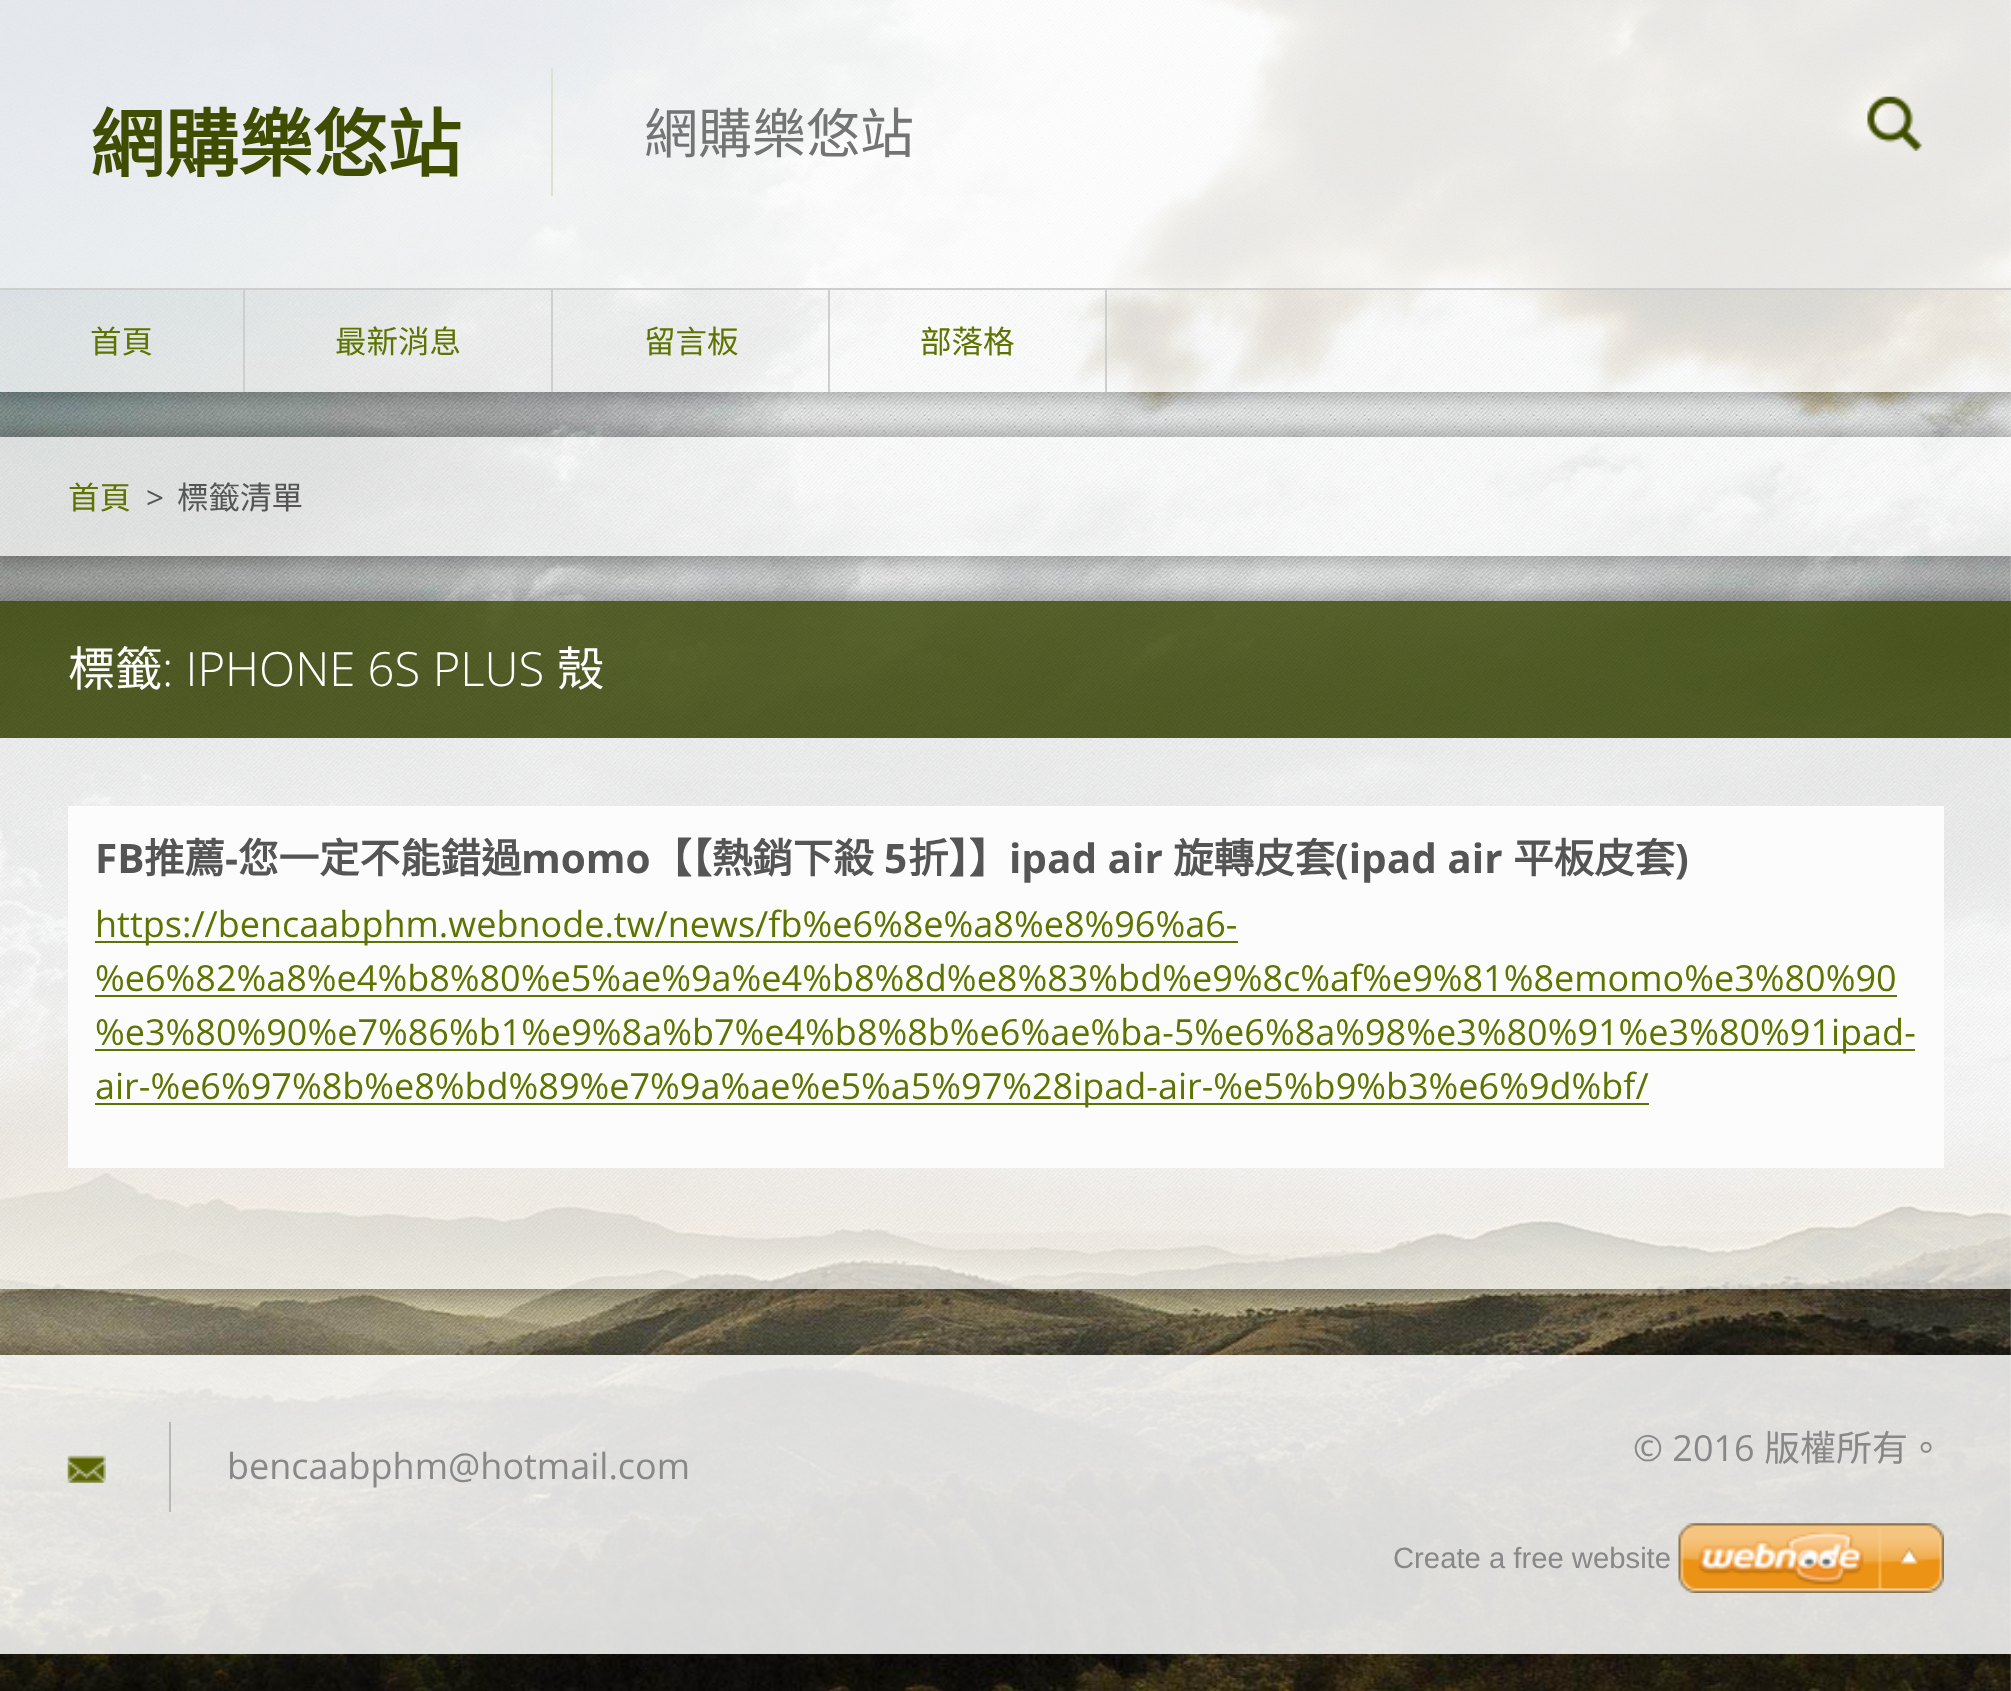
async function draw(canvas) {
  canvas.width = 2011;
  canvas.height = 1691;
  const ctx = canvas.getContext('2d');
  ctx.miterLimit = 4;
  ctx.fontKerning = 'normal';
  function label(s, x, y, font, color) {
    ctx.font = font;
    ctx.fillStyle = color;
    ctx.fillText(s, x, y);
  }
  function rect(x, y, w, h, color) {
    ctx.fillStyle = color;
    ctx.fillRect(x, y, w, h);
  }
  async function image(src, x, y, w, h) {
    const img = new Image();
    img.src = src;
    await img.decode();
    ctx.drawImage(img, x, y, w, h);
  }
  let path;

  rect(0, 0, 2011, 1691, '#fff');
  await image('assets/img1.png', 0, 0, 2011, 1691);
  ctx.save();
  path = new Path2D('M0 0H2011V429H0ZM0 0H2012V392H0Z');
  ctx.clip(path, 'evenodd');
  ctx.fillStyle = '#00000040';
  ctx.filter = 'blur(10px)';
  ctx.beginPath();
  ctx.rect(-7, -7, 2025, 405);
  ctx.fill();
  ctx.filter = 'none';
  ctx.restore();
  rect(0, 0, 2011, 288, '#ffffffd9');
  label('網購樂悠站', 90, 171, 'bold 74.25px Noto Sans CJK TC', '#3e4d00');
  rect(551, 68, 2, 128, '#dce2cf');
  label('網購樂悠站', 644, 153, '54px Noto Sans CJK TC', '#747474');
  await image('assets/img2.png', 1867, 96, 55, 55);
  rect(0, 288, 2011, 2, '#cecece');
  rect(0, 290, 2011, 102, '#ffffffbf');
  rect(243, 290, 2, 102, '#cecece');
  label('首頁', 90, 353, '31.5px Noto Sans CJK TC', '#5d7400');
  rect(551, 290, 2, 102, '#cecece');
  label('最新消息', 335, 353, '31.5px Noto Sans CJK TC', '#5d7400');
  rect(828, 290, 2, 102, '#cecece');
  label('留言板', 644, 353, '31.5px Noto Sans CJK TC', '#5d7400');
  rect(1105, 290, 2, 102, '#cecece');
  label('部落格', 920, 353, '31.5px Noto Sans CJK TC', '#5d7400');
  ctx.save();
  path = new Path2D('M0 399H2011V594H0ZM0 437H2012V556H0Z');
  ctx.clip(path, 'evenodd');
  ctx.fillStyle = '#00000040';
  ctx.filter = 'blur(10px)';
  ctx.beginPath();
  ctx.rect(-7, 430, 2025, 133);
  ctx.fill();
  ctx.filter = 'none';
  ctx.restore();
  rect(0, 437, 2011, 119, '#ffffffb3');
  label('首頁', 68, 509, '31.5px Noto Sans CJK TC', '#5d7400');
  label('>', 146, 509, '31.5px Open Sans', '#555');
  label('標籤清單', 177, 509, '31.5px Noto Sans CJK TC', '#555');
  ctx.save();
  path = new Path2D('M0 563H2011V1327H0ZM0 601H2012V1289H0Z');
  ctx.clip(path, 'evenodd');
  ctx.fillStyle = '#00000040';
  ctx.filter = 'blur(10px)';
  ctx.beginPath();
  ctx.rect(-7, 594, 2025, 702);
  ctx.fill();
  ctx.filter = 'none';
  ctx.restore();
  rect(0, 601, 2011, 137, '#354200cc');
  label('標籤', 68, 686, '47.25px Noto Sans CJK TC', '#fff');
  label(': IPHONE 6S PLUS', 162, 686, '300 47.25px Open Sans', '#fff');
  label('殼', 557, 686, '47.25px Noto Sans CJK TC', '#fff');
  rect(0, 738, 2011, 484, '#ffffffb3');
  rect(68, 806, 1876, 362, '#fcfcfc');
  label('FB', 95, 873, 'bold 40.5px Open Sans', '#555');
  label('推薦', 144, 873, 'bold 40.5px Noto Sans CJK TC', '#555');
  label('-', 225, 873, 'bold 40.5px Open Sans', '#555');
  label('您一定不能錯過', 238, 873, 'bold 40.5px Noto Sans CJK TC', '#555');
  label('momo', 521, 873, 'bold 40.5px Open Sans', '#555');
  label('【【熱銷下殺', 651, 873, 'bold 40.5px Noto Sans CJK TC', '#555');
  label('5', 884, 873, 'bold 40.5px Open Sans', '#555');
  label('折】】', 908, 873, 'bold 40.5px Noto Sans CJK TC', '#555');
  label('ipad air', 1009, 873, 'bold 40.5px Open Sans', '#555');
  label('旋轉皮套', 1173, 873, 'bold 40.5px Noto Sans CJK TC', '#555');
  label('(ipad air', 1335, 873, 'bold 40.5px Open Sans', '#555');
  label('平板皮套', 1513, 873, 'bold 40.5px Noto Sans CJK TC', '#555');
  label(')', 1675, 873, 'bold 40.5px Open Sans', '#555');
  rect(95, 941, 1143, 2, '#5d7400');
  label('https://bencaabphm.webnode.tw/news/fb%e6%8e%a8%e8%96%a6-', 95, 937, '36px Open Sans', '#5d7400');
  label('%e6%82%a8%e4%b8%80%e5%ae%9a%e4%b8%8d%e8%83%bd%e9%8c%af%e9%81%8emomo%e3%80%90', 95, 991, '36px Open Sans', '#5d7400');
  rect(95, 995, 1802, 2, '#5d7400');
  rect(95, 1049, 1820, 2, '#5d7400');
  label('%e3%80%90%e7%86%b1%e9%8a%b7%e4%b8%8b%e6%ae%ba-5%e6%8a%98%e3%80%91%e3%80%91ipad-', 95, 1045, '36px Open Sans', '#5d7400');
  rect(95, 1103, 1554, 2, '#5d7400');
  label('air-%e6%97%8b%e8%bd%89%e7%9a%ae%e5%a5%97%28ipad-air-%e5%b9%b3%e6%9d%bf/', 95, 1099, '36px Open Sans', '#5d7400');
  rect(0, 1222, 2011, 67, '#ffffffb3');
  ctx.save();
  ctx.beginPath();
  ctx.rect(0, 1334, 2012, 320);
  ctx.clip();
  path = new Path2D('M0 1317H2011V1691H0ZM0 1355H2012V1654H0Z');
  ctx.clip(path, 'evenodd');
  ctx.fillStyle = '#00000040';
  ctx.filter = 'blur(10px)';
  ctx.beginPath();
  ctx.rect(-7, 1348, 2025, 313);
  ctx.fill();
  ctx.filter = 'none';
  ctx.restore();
  rect(0, 1355, 2011, 299, '#ffffffd9');
  label('© 2016', 1633, 1461, '36px Open Sans', '#888');
  label('版權所有。', 1764, 1461, '36px Noto Sans CJK TC', '#888');
  await image('assets/img3.png', 67, 1455, 39, 28);
  rect(169, 1422, 2, 90, '#b7b7b7');
  label('bencaabphm@hotmail.com', 227, 1479, '36px Open Sans', '#888');
  label('Create a free website', 1393, 1568, '29.25px Liberation Sans', '#888');
  await image('assets/img4.png', 1678, 1523, 266, 70);
}

draw(document.querySelector('canvas'));
